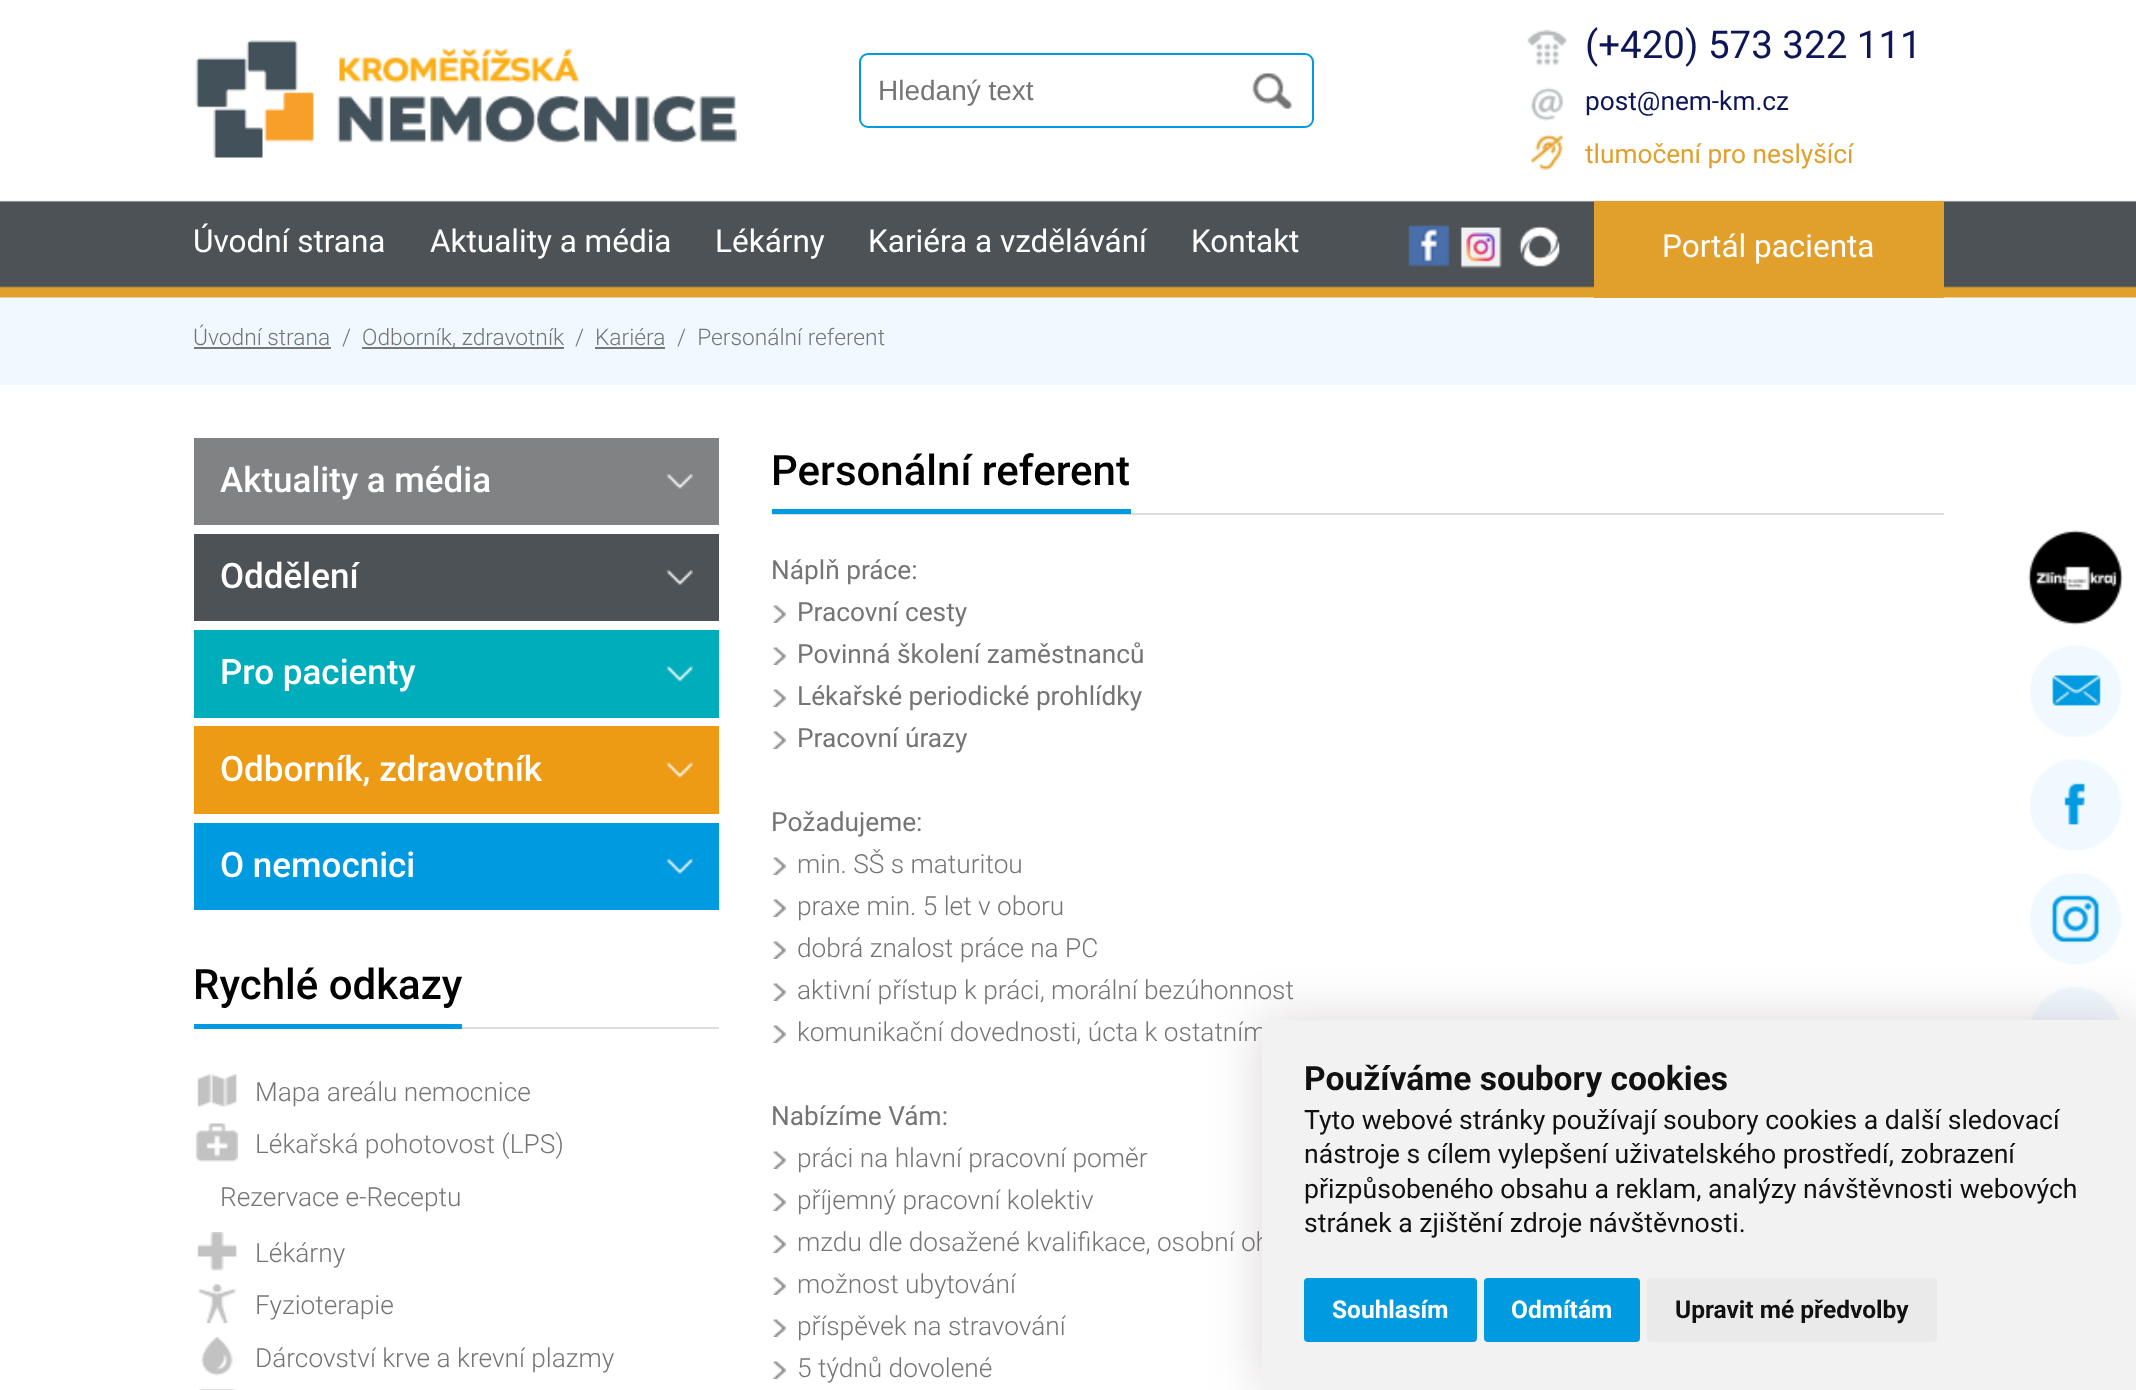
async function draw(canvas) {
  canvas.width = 2136;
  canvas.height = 1390;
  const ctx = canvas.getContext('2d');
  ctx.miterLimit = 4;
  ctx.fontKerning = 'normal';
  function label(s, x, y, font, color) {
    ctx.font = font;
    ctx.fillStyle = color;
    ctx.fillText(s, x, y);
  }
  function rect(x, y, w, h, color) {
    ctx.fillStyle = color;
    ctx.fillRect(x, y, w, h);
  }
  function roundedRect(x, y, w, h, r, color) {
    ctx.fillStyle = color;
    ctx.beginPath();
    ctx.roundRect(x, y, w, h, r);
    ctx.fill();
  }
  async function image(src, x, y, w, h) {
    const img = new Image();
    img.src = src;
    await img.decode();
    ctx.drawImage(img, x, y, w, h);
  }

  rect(0, 0, 2136, 1390, '#fff');
  await image('assets/img1.png', 0, 200, 2136, 98);
  await image('assets/img2.png', 195, 40, 542, 118);
  ctx.beginPath();
  ctx.roundRect(860, 54, 453, 73, 8);
  ctx.strokeStyle = '#009ae1';
  ctx.lineWidth = 2;
  ctx.stroke();
  label('Hledaný text', 878, 100, '28px Liberation Sans', '#757575');
  await image('assets/img3.png', 1252, 72, 40, 37);
  await image('assets/img4.png', 1527, 29, 40, 37);
  label('(+420) 573 322 111', 1585, 58, '38.5px Roboto', '#0e1657');
  await image('assets/img5.png', 1531, 87, 32, 34);
  label('post@nem-km.cz', 1585, 110, '26.25px Roboto', '#0e1657');
  await image('assets/img6.png', 1531, 134, 32, 37);
  label('tlumočení pro neslyšící', 1585, 163, '26.25px Roboto', '#e19f2c');
  label('Úvodní strana', 193, 252, '31.5px Roboto', '#fff');
  label('Aktuality a média', 430, 252, '31.5px Roboto', '#fff');
  label('Lékárny', 715, 252, '31.5px Roboto', '#fff');
  label('Kariéra a vzdělávání', 868, 252, '31.5px Roboto', '#fff');
  label('Kontakt', 1191, 252, '31.5px Roboto', '#fff');
  await image('assets/img7.png', 1408, 225, 42, 42);
  await image('assets/img8.png', 1460, 227, 42, 42);
  await image('assets/img9.png', 1518, 225, 42, 42);
  rect(1594, 201, 350, 97, '#e19f2c');
  label('Portál pacienta', 1662, 257, '31.5px Roboto', '#fff');
  rect(0, 298, 2136, 87, '#f0f9ff');
  label('Úvodní strana', 193, 345, '300 22.75px Roboto', '#757575');
  rect(194, 347, 137, 2, '#777');
  label('/', 342, 345, '300 22.75px Roboto', '#757575');
  rect(362, 347, 202, 2, '#777');
  label('Odborník, zdravotník', 362, 345, '300 22.75px Roboto', '#757575');
  label('/', 575, 345, '300 22.75px Roboto', '#757575');
  label('Kariéra', 595, 345, '300 22.75px Roboto', '#757575');
  rect(595, 347, 70, 2, '#777');
  label('/  Personální referent', 677, 345, '300 22.75px Roboto', '#757575');
  rect(194, 438, 525, 87, '#808284');
  await image('assets/img10.png', 666, 474, 27, 15);
  label('Aktuality a média', 220, 492, '500 35px Roboto', '#fff');
  rect(194, 534, 525, 87, '#4c5256');
  await image('assets/img11.png', 666, 570, 27, 15);
  label('Oddělení', 220, 588, '500 35px Roboto', '#fff');
  rect(194, 630, 525, 88, '#00adba');
  await image('assets/img12.png', 666, 666, 27, 16);
  label('Pro pacienty', 220, 684, '500 35px Roboto', '#fff');
  rect(194, 726, 525, 88, '#ed9a15');
  await image('assets/img13.png', 666, 762, 27, 16);
  label('Odborník, zdravotník', 220, 781, '500 35px Roboto', '#fff');
  rect(194, 823, 525, 87, '#009ae1');
  await image('assets/img14.png', 666, 858, 27, 16);
  label('O nemocnici', 220, 877, '500 35px Roboto', '#fff');
  rect(194, 1024, 268, 5, '#009ae1');
  label('Rychlé odkazy', 193, 999, '500 42px Roboto', '#000');
  rect(462, 1027, 257, 2, '#ddd');
  await image('assets/img15.png', 197, 1074, 40, 34);
  label('Mapa areálu nemocnice', 255, 1101, '300 26.25px Roboto', '#757575');
  await image('assets/img16.png', 195, 1123, 43, 39);
  label('Lékařská pohotovost (LPS)', 255, 1153, '300 26.25px Roboto', '#757575');
  label('Rezervace e-Receptu', 220, 1206, '300 26.25px Roboto', '#757575');
  await image('assets/img17.png', 197, 1232, 40, 39);
  label('Lékárny', 255, 1262, '300 26.25px Roboto', '#757575');
  await image('assets/img18.png', 198, 1284, 39, 39);
  label('Fyzioterapie', 255, 1314, '300 26.25px Roboto', '#757575');
  await image('assets/img19.png', 201, 1337, 32, 39);
  label('Dárcovství krve a krevní plazmy', 255, 1367, '300 26.25px Roboto', '#757575');
  await image('assets/img20.png', 199, 1389, 36, 1);
  rect(772, 513, 1172, 2, '#ddd');
  rect(772, 509, 359, 5, '#009ae1');
  label('Personální referent', 771, 485, '500 42px Roboto', '#000');
  label('Náplň práce:', 771, 579, '26.25px Roboto', '#757575');
  await image('assets/img21.png', 773, 605, 13, 18);
  label('Pracovní cesty', 797, 621, '26.25px Roboto', '#757575');
  await image('assets/img21.png', 773, 647, 13, 18);
  label('Povinná školení zaměstnanců', 797, 663, '26.25px Roboto', '#757575');
  await image('assets/img21.png', 773, 689, 13, 18);
  label('Lékařské periodické prohlídky', 797, 705, '26.25px Roboto', '#757575');
  await image('assets/img21.png', 773, 731, 13, 18);
  label('Pracovní úrazy', 797, 747, '26.25px Roboto', '#757575');
  label('Požadujeme:', 771, 831, '26.25px Roboto', '#757575');
  await image('assets/img21.png', 773, 857, 13, 18);
  label('min. SŠ s maturitou', 797, 873, '300 26.25px Roboto', '#757575');
  await image('assets/img21.png', 773, 899, 13, 18);
  label('praxe min. 5 let v oboru', 797, 915, '300 26.25px Roboto', '#757575');
  await image('assets/img21.png', 773, 941, 13, 18);
  label('dobrá znalost práce na PC', 797, 957, '300 26.25px Roboto', '#757575');
  await image('assets/img21.png', 773, 983, 13, 18);
  label('aktivní přístup k práci, morální bezúhonnost', 797, 999, '300 26.25px Roboto', '#757575');
  await image('assets/img21.png', 773, 1025, 13, 18);
  label('komunikační dovednosti, úcta k ostatním', 797, 1041, '300 26.25px Roboto', '#757575');
  label('Nabízíme Vám:', 771, 1125, '26.25px Roboto', '#757575');
  await image('assets/img21.png', 773, 1151, 13, 18);
  label('práci na hlavní pracovní poměr', 797, 1167, '300 26.25px Roboto', '#757575');
  await image('assets/img21.png', 773, 1193, 13, 18);
  label('příjemný pracovní kolektiv', 797, 1209, '300 26.25px Roboto', '#757575');
  await image('assets/img21.png', 773, 1235, 13, 18);
  label('mzdu dle dosažené kvalifikace, osobní oh', 797, 1251, '300 26.25px Roboto', '#757575');
  await image('assets/img21.png', 773, 1277, 13, 18);
  label('možnost ubytování', 797, 1293, '300 26.25px Roboto', '#757575');
  await image('assets/img21.png', 773, 1319, 13, 18);
  label('příspěvek na stravování', 797, 1335, '300 26.25px Roboto', '#757575');
  await image('assets/img21.png', 773, 1361, 13, 18);
  label('5 týdnů dovolené', 797, 1377, '300 26.25px Roboto', '#757575');
  await image('assets/img22.png', 2028, 530, 95, 95);
  await image('assets/img23.png', 2029, 645, 93, 93);
  await image('assets/img24.png', 2029, 759, 93, 92);
  await image('assets/img25.png', 2029, 873, 93, 92);
  await image('assets/img26.png', 2030, 986, 91, 34);
  ctx.fillStyle = '#442d2d33';
  ctx.filter = 'blur(26px)';
  ctx.beginPath();
  ctx.rect(1262, 1020, 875, 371);
  ctx.fill();
  ctx.filter = 'none';
  rect(1262, 1020, 874, 370, '#f2f2f2');
  label('Používáme soubory cookies', 1304, 1090, 'bold 33.6px Roboto', '#111');
  label('Tyto webové stránky používají soubory cookies a další sledovací', 1304, 1129, '26.6px Roboto', '#111');
  label('nástroje s cílem vylepšení uživatelského prostředí, zobrazení', 1304, 1163, '26.6px Roboto', '#111');
  label('přizpůsobeného obsahu a reklam, analýzy návštěvnosti webových', 1304, 1198, '26.6px Roboto', '#111');
  label('stránek a zjištění zdroje návštěvnosti.', 1304, 1232, '26.6px Roboto', '#111');
  roundedRect(1304, 1278, 173, 64, 4, '#009ae1');
  label('Souhlasím', 1332, 1318, 'bold 24.5px Roboto', '#fff');
  roundedRect(1484, 1278, 156, 64, 4, '#009ae1');
  label('Odmítám', 1511, 1318, 'bold 24.5px Roboto', '#fff');
  roundedRect(1647, 1278, 290, 64, 4, '#eaeaea');
  label('Upravit mé předvolby', 1675, 1318, 'bold 24.5px Roboto', '#111');
}

draw(document.querySelector('canvas'));
